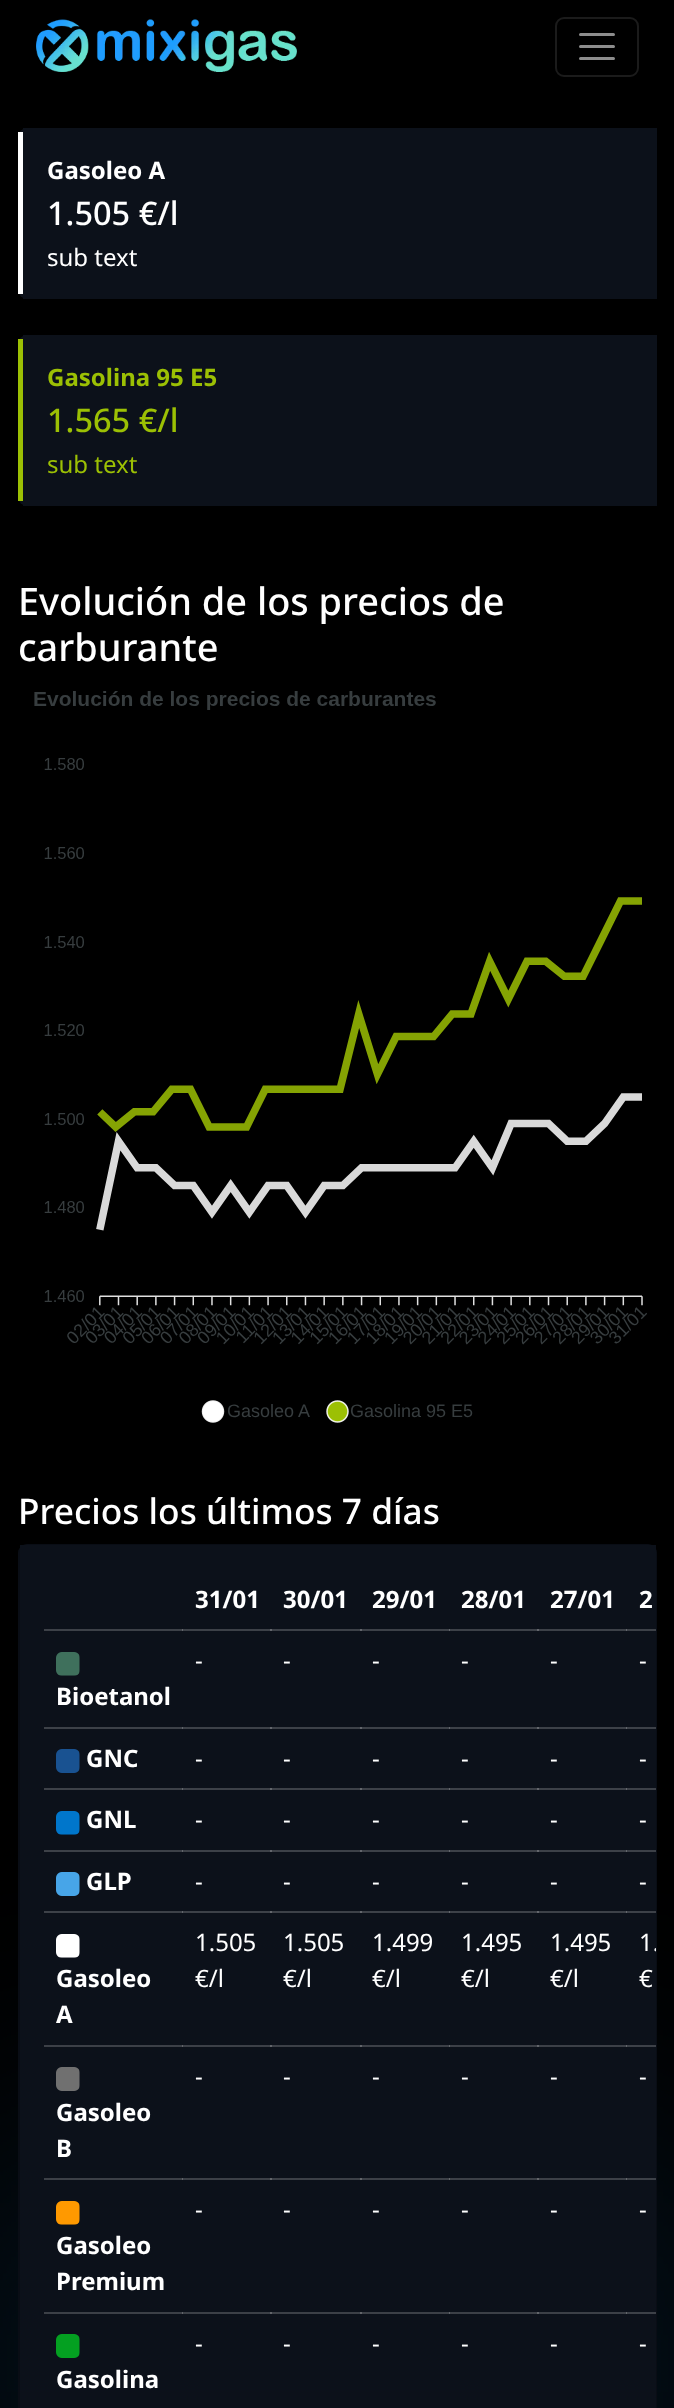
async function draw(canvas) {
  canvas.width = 674;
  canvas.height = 2408;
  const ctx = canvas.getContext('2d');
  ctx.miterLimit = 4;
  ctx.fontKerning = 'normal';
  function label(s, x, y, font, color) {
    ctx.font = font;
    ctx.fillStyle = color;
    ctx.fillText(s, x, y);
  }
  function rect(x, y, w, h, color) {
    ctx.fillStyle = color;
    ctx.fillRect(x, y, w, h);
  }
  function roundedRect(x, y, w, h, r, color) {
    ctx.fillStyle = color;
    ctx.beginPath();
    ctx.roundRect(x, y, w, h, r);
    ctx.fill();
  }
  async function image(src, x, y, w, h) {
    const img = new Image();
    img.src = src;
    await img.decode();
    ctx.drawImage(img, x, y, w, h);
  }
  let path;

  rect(0, 0, 674, 2408, '#000');
  await image('assets/img1.png', 36, 19, 261, 53);
  ctx.beginPath();
  ctx.roundRect(556, 18, 82, 58, 8);
  ctx.strokeStyle = '#1b1b1b';
  ctx.lineWidth = 2;
  ctx.stroke();
  path = new Path2D('M580.5 34.5H613.5M580.5 46.5H613.5M580.5 58.5H613.5');
  ctx.strokeStyle = '#8d8d8d';
  ctx.lineWidth = 3;
  ctx.lineCap = 'round';
  ctx.stroke(path);
  roundedRect(18, 128, 639, 171, 9, '#0c111a');
  rect(18, 132, 5, 162, '#fff');
  rect(23, 128, 634, 171, '#0c111a');
  label('Gasoleo A', 47, 179, 'bold 24px Noto Sans', '#fff');
  label('1.505 €/l', 47, 225, '500 32.5px Noto Sans', '#fff');
  label('sub text', 47, 266, '24px Noto Sans', '#fff');
  roundedRect(18, 335, 639, 171, 9, '#0c111a');
  rect(18, 339, 5, 162, '#9cc004');
  rect(23, 335, 634, 171, '#0c111a');
  label('Gasolina 95 E5', 47, 386, 'bold 24px Noto Sans', '#9cc004');
  label('1.565 €/l', 47, 432, '500 32.5px Noto Sans', '#9cc004');
  label('sub text', 47, 473, '24px Noto Sans', '#9cc004');
  label('Evolución de los precios de', 18, 615, '500 37.9px Noto Sans', '#fff');
  label('carburante', 18, 661, '500 37.9px Noto Sans', '#fff');
  await image('assets/img2.png', 34, 691, 613, 654);
  await image('assets/img3.png', 201, 1400, 24, 23);
  label('Gasoleo A', 227, 1417, '18px Liberation Sans', '#373d3f');
  await image('assets/img4.png', 326, 1400, 23, 23);
  label('Gasolina 95 E5', 350, 1417, '18px Liberation Sans', '#373d3f');
  label('Precios los últimos 7 días', 18, 1524, '500 35.25px Noto Sans', '#fff');
  ctx.fillStyle = '#209cffb3';
  ctx.filter = 'blur(191.5px)';
  ctx.beginPath();
  ctx.rect(0, 2319, 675, 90);
  ctx.fill();
  ctx.filter = 'none';
  roundedRect(18, 1544, 639, 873, 9, '#0c111a');
  ctx.beginPath();
  ctx.roundRect(19, 1545, 637, 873, 8);
  ctx.strokeStyle = '#0000002e';
  ctx.lineWidth = 2;
  ctx.stroke();
  rect(20, 1545, 636, 863, '#0c111a');
  rect(44, 1629, 612, 2, '#3d4148');
  rect(182, 1629, 1, 2, '#64676d');
  rect(270, 1629, 2, 2, '#64676d');
  rect(360, 1629, 2, 2, '#64676d');
  rect(449, 1629, 1, 2, '#64676d');
  rect(537, 1629, 2, 2, '#64676d');
  rect(44, 1727, 612, 2, '#3d4148');
  rect(182, 1727, 1, 2, '#64676d');
  rect(270, 1727, 2, 2, '#64676d');
  rect(360, 1727, 2, 2, '#64676d');
  rect(449, 1727, 1, 2, '#64676d');
  rect(537, 1727, 2, 2, '#64676d');
  rect(44, 1788, 612, 2, '#3d4148');
  rect(182, 1788, 1, 2, '#64676d');
  rect(270, 1788, 2, 2, '#64676d');
  rect(360, 1788, 2, 2, '#64676d');
  rect(449, 1788, 1, 2, '#64676d');
  rect(537, 1788, 2, 2, '#64676d');
  rect(44, 1850, 612, 2, '#3d4148');
  rect(182, 1850, 1, 2, '#64676d');
  rect(270, 1850, 2, 2, '#64676d');
  rect(360, 1850, 2, 2, '#64676d');
  rect(449, 1850, 1, 2, '#64676d');
  rect(537, 1850, 2, 2, '#64676d');
  rect(44, 1911, 612, 2, '#3d4148');
  rect(182, 1911, 1, 2, '#64676d');
  rect(270, 1911, 2, 2, '#64676d');
  rect(360, 1911, 2, 2, '#64676d');
  rect(449, 1911, 1, 2, '#64676d');
  rect(537, 1911, 2, 2, '#64676d');
  label('31/01', 195, 1608, 'bold 24px Noto Sans', '#fff');
  label('30/01', 283, 1608, 'bold 24px Noto Sans', '#fff');
  label('29/01', 372, 1608, 'bold 24px Noto Sans', '#fff');
  label('28/01', 461, 1608, 'bold 24px Noto Sans', '#fff');
  label('27/01', 550, 1608, 'bold 24px Noto Sans', '#fff');
  rect(626, 1629, 1, 2, '#64676d');
  label('2', 639, 1608, 'bold 24px Noto Sans', '#fff');
  label('-', 195, 1669, '24px Noto Sans', '#fff');
  label('-', 283, 1669, '24px Noto Sans', '#fff');
  label('-', 372, 1669, '24px Noto Sans', '#fff');
  label('-', 461, 1669, '24px Noto Sans', '#fff');
  label('-', 550, 1669, '24px Noto Sans', '#fff');
  rect(626, 1727, 1, 2, '#64676d');
  label('-', 639, 1669, '24px Noto Sans', '#fff');
  await image('assets/img5.png', 56, 1652, 24, 24);
  label('Bioetanol', 56, 1705, 'bold 24px Noto Sans', '#fff');
  await image('assets/img6.png', 56, 1749, 24, 24);
  label('GNC', 86, 1767, 'bold 24px Noto Sans', '#fff');
  label('-', 195, 1767, '24px Noto Sans', '#fff');
  label('-', 283, 1767, '24px Noto Sans', '#fff');
  label('-', 372, 1767, '24px Noto Sans', '#fff');
  label('-', 461, 1767, '24px Noto Sans', '#fff');
  label('-', 550, 1767, '24px Noto Sans', '#fff');
  rect(626, 1788, 1, 2, '#64676d');
  label('-', 639, 1767, '24px Noto Sans', '#fff');
  await image('assets/img7.png', 56, 1811, 24, 24);
  label('GNL', 86, 1828, 'bold 24px Noto Sans', '#fff');
  label('-', 195, 1828, '24px Noto Sans', '#fff');
  label('-', 283, 1828, '24px Noto Sans', '#fff');
  label('-', 372, 1828, '24px Noto Sans', '#fff');
  label('-', 461, 1828, '24px Noto Sans', '#fff');
  label('-', 550, 1828, '24px Noto Sans', '#fff');
  rect(626, 1850, 1, 2, '#64676d');
  label('-', 639, 1828, '24px Noto Sans', '#fff');
  await image('assets/img8.png', 56, 1872, 24, 24);
  label('GLP', 86, 1890, 'bold 24px Noto Sans', '#fff');
  label('-', 195, 1890, '24px Noto Sans', '#fff');
  label('-', 283, 1890, '24px Noto Sans', '#fff');
  label('-', 372, 1890, '24px Noto Sans', '#fff');
  label('-', 461, 1890, '24px Noto Sans', '#fff');
  label('-', 550, 1890, '24px Noto Sans', '#fff');
  rect(626, 1911, 1, 2, '#64676d');
  label('-', 639, 1890, '24px Noto Sans', '#fff');
  rect(626, 2045, 30, 2, '#3d4148');
  rect(537, 2045, 90, 2, '#ffffff33');
  rect(449, 2045, 90, 2, '#ffffff33');
  rect(360, 2045, 90, 2, '#ffffff33');
  rect(270, 2045, 92, 2, '#ffffff33');
  rect(182, 2045, 90, 2, '#ffffff33');
  label('1.505', 195, 1951, '24px Noto Sans', '#fff');
  label('€/l', 195, 1987, '24px Noto Sans', '#fff');
  label('1.505', 283, 1951, '24px Noto Sans', '#fff');
  label('€/l', 283, 1987, '24px Noto Sans', '#fff');
  label('1.499', 372, 1951, '24px Noto Sans', '#fff');
  label('€/l', 372, 1987, '24px Noto Sans', '#fff');
  label('1.495', 461, 1951, '24px Noto Sans', '#fff');
  label('€/l', 461, 1987, '24px Noto Sans', '#fff');
  label('1.495', 550, 1951, '24px Noto Sans', '#fff');
  label('€/l', 550, 1987, '24px Noto Sans', '#fff');
  ctx.save();
  ctx.beginPath();
  ctx.rect(20, 1545, 636, 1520);
  ctx.clip();
  label('1.', 639, 1951, '24px Noto Sans', '#fff');
  ctx.restore();
  label('€', 639, 1987, '24px Noto Sans', '#fff');
  rect(44, 2045, 139, 2, '#ffffff33');
  await image('assets/img9.png', 56, 1934, 24, 24);
  label('Gasoleo', 56, 1987, 'bold 24px Noto Sans', '#fff');
  label('A', 56, 2023, 'bold 24px Noto Sans', '#fff');
  rect(626, 2178, 30, 2, '#3d4148');
  rect(537, 2178, 90, 2, '#ffffff33');
  rect(449, 2178, 90, 2, '#ffffff33');
  rect(360, 2178, 90, 2, '#ffffff33');
  rect(270, 2178, 92, 2, '#ffffff33');
  rect(182, 2178, 90, 2, '#ffffff33');
  label('-', 195, 2085, '24px Noto Sans', '#fff');
  label('-', 283, 2085, '24px Noto Sans', '#fff');
  label('-', 372, 2085, '24px Noto Sans', '#fff');
  label('-', 461, 2085, '24px Noto Sans', '#fff');
  label('-', 550, 2085, '24px Noto Sans', '#fff');
  label('-', 639, 2085, '24px Noto Sans', '#fff');
  rect(44, 2178, 139, 2, '#ffffff33');
  await image('assets/img10.png', 56, 2067, 24, 24);
  label('Gasoleo', 56, 2121, 'bold 24px Noto Sans', '#fff');
  label('B', 56, 2157, 'bold 24px Noto Sans', '#fff');
  rect(626, 2312, 30, 2, '#3d4148');
  rect(537, 2312, 90, 2, '#ffffff33');
  rect(449, 2312, 90, 2, '#ffffff33');
  rect(360, 2312, 90, 2, '#ffffff33');
  rect(270, 2312, 92, 2, '#ffffff33');
  rect(182, 2312, 90, 2, '#ffffff33');
  label('-', 195, 2218, '24px Noto Sans', '#fff');
  label('-', 283, 2218, '24px Noto Sans', '#fff');
  label('-', 372, 2218, '24px Noto Sans', '#fff');
  label('-', 461, 2218, '24px Noto Sans', '#fff');
  label('-', 550, 2218, '24px Noto Sans', '#fff');
  label('-', 639, 2218, '24px Noto Sans', '#fff');
  rect(44, 2312, 139, 2, '#ffffff33');
  await image('assets/img11.png', 56, 2201, 24, 24);
  label('Gasoleo', 56, 2254, 'bold 24px Noto Sans', '#fff');
  label('Premium', 56, 2290, 'bold 24px Noto Sans', '#fff');
  label('-', 195, 2352, '24px Noto Sans', '#fff');
  label('-', 283, 2352, '24px Noto Sans', '#fff');
  label('-', 372, 2352, '24px Noto Sans', '#fff');
  label('-', 461, 2352, '24px Noto Sans', '#fff');
  label('-', 550, 2352, '24px Noto Sans', '#fff');
  label('-', 639, 2352, '24px Noto Sans', '#fff');
  await image('assets/img12.png', 56, 2334, 24, 24);
  label('Gasolina', 56, 2388, 'bold 24px Noto Sans', '#fff');
}

draw(document.querySelector('canvas'));
